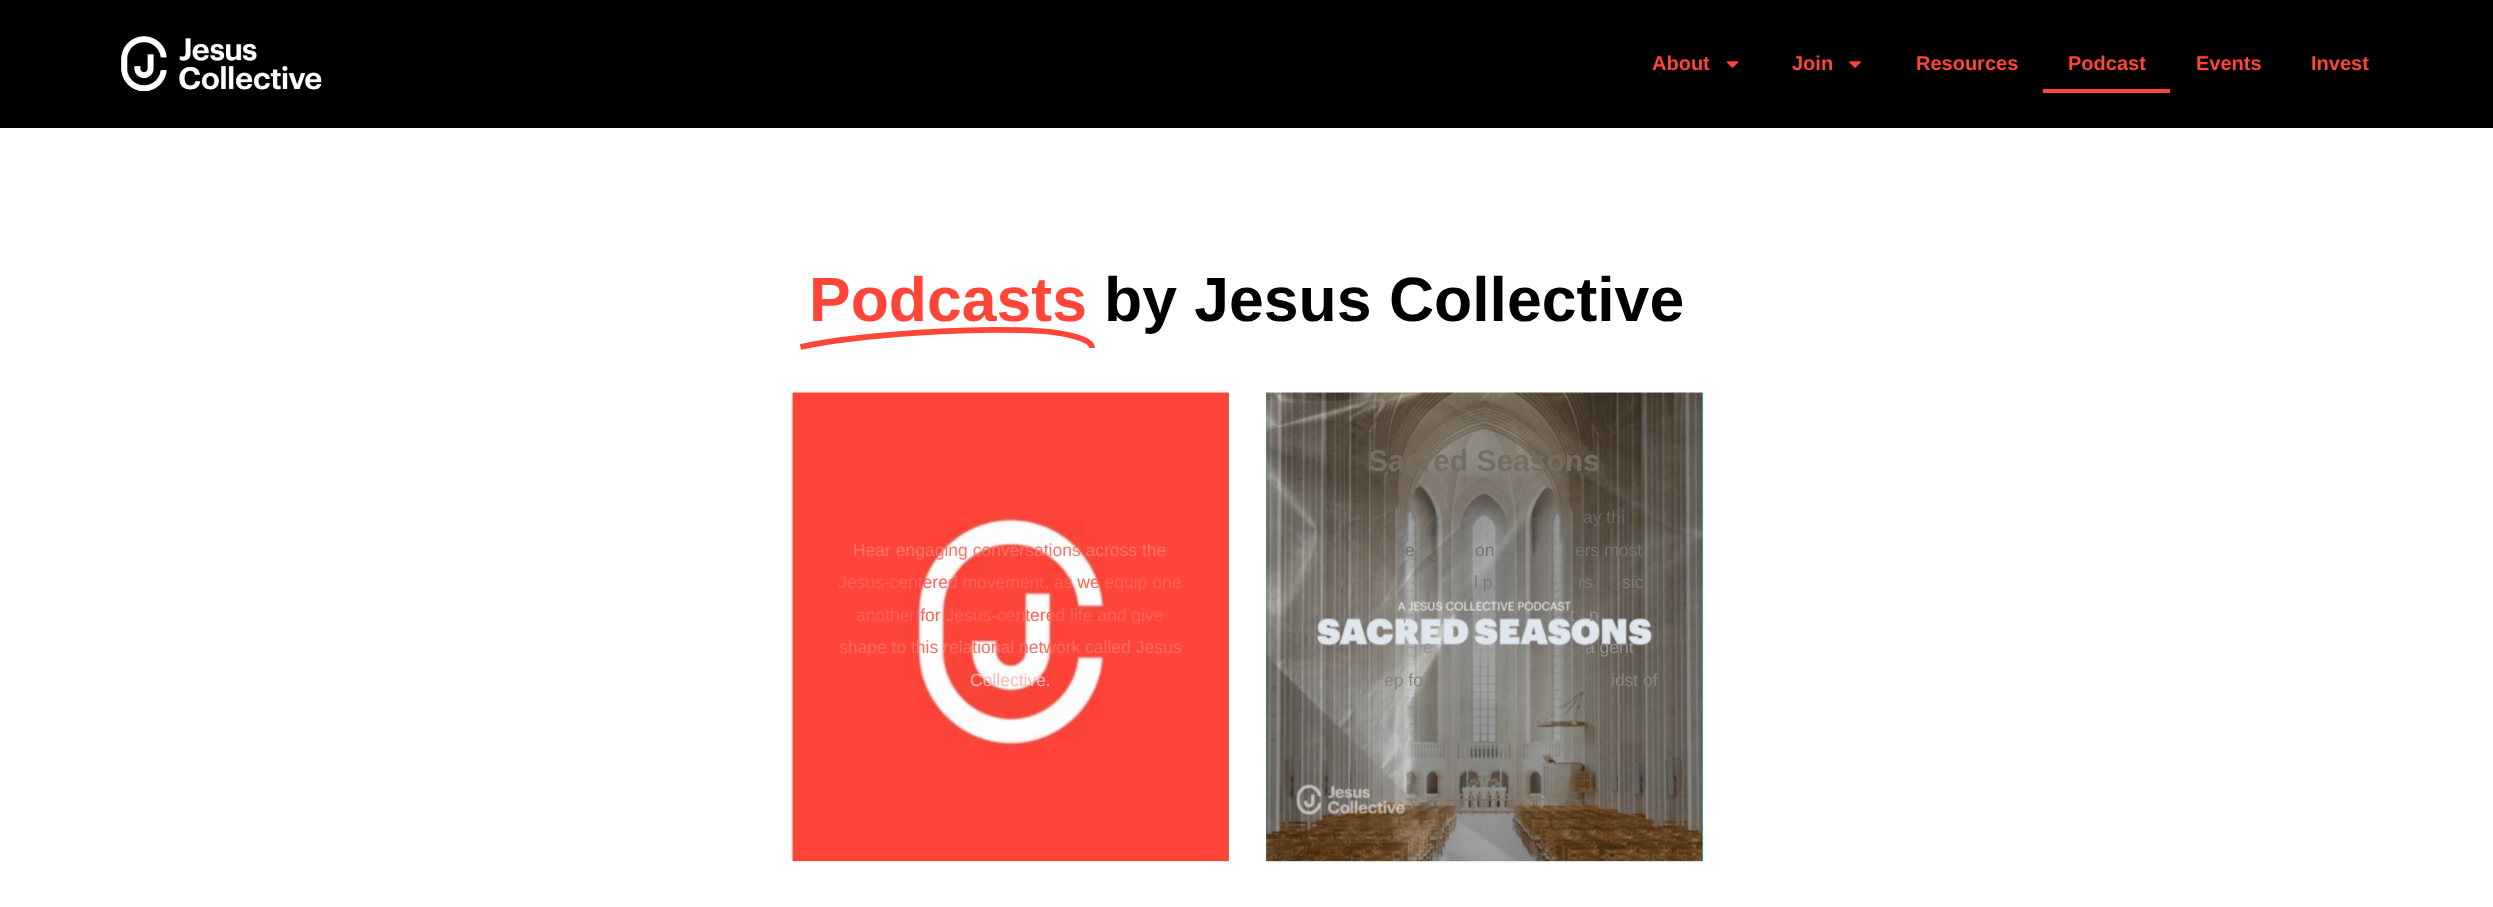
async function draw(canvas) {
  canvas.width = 2493;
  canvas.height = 907;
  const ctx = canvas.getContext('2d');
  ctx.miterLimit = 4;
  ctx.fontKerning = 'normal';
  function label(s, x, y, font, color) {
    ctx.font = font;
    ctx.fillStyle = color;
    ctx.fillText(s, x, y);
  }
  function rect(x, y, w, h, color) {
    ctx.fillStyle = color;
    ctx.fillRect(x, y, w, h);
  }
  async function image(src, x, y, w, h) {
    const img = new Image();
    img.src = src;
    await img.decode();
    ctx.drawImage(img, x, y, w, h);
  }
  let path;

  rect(0, 0, 2493, 907, '#fff');
  rect(0, 0, 2493, 128, '#000');
  await image('assets/img1.png', 121, 36, 201, 56);
  label('About', 1652, 70, 'bold 20px Liberation Sans', '#ff4438');
  await image('assets/img2.png', 1726, 61, 13, 7);
  label('Join', 1792, 70, 'bold 20px Liberation Sans', '#ff4438');
  await image('assets/img3.png', 1849, 61, 12, 7);
  label('Resources', 1916, 70, 'bold 20px Liberation Sans', '#ff4438');
  label('Podcast', 2068, 70, 'bold 20px Liberation Sans', '#ff4438');
  rect(2043, 89, 127, 4, '#ff4438');
  label('Events', 2196, 70, 'bold 20px Liberation Sans', '#ff4438');
  label('Invest', 2311, 70, 'bold 20px Liberation Sans', '#ff4438');
  label('Podcasts', 809, 321, 'bold 62.5px Liberation Sans', '#ff4438');
  path = new Path2D('M800.5 347C862 333.5 977.5 327.5 1039 331C1064.5 332.5 1092 338.5 1092 348');
  ctx.strokeStyle = '#ff4438';
  ctx.lineWidth = 5.7;
  ctx.stroke(path);
  label('by Jesus Collective', 1104, 321, 'bold 62.5px Liberation Sans', '#000');
  rect(793, 393, 436, 468, '#1abc9c');
  await image('assets/img4.png', 791, 391, 439, 471);
  label('Hear engaging conversations across the', 853, 556, '17.5px Liberation Sans', '#fc746b');
  label('Jesus-centered movement, as we equip one', 838, 588, '17.5px Liberation Sans', '#fd6157');
  label('another for Jesus-centered life and give', 856, 621, '17.5px Liberation Sans', '#fd6157');
  label('shape to this relational network called Jesus', 839, 653, '17.5px Liberation Sans', '#fd6c62');
  label('Collective.', 970, 686, '17.5px Liberation Sans', '#fab9b5');
  rect(1266, 393, 437, 468, '#1abc9c');
  await image('assets/img5.png', 1266, 392, 437, 470);
  label('Sacred Seasons', 1368, 471, 'bold 30px Liberation Sans', '#756d61');
  label('ay thi', 1583, 523, '17.5px Liberation Sans', '#6e675f');
  label('e', 1405, 556, '17.5px Liberation Sans', '#77736d');
  label('on', 1475, 556, '17.5px Liberation Sans', '#77736d');
  label('ers most', 1575, 556, '17.5px Liberation Sans', '#77736d');
  label('i', 1340, 588, '17.5px Liberation Sans', '#7d7a74');
  label('l p', 1474, 588, '17.5px Liberation Sans', '#7d7a74');
  label('rs', 1578, 588, '17.5px Liberation Sans', '#7d7a74');
  label('sic', 1622, 588, '17.5px Liberation Sans', '#7d7a74');
  label('t', 1570, 621, '17.5px Liberation Sans', '#92908c');
  label('n', 1589, 621, '17.5px Liberation Sans', '#92908c');
  label(',', 1402, 621, '17.5px Liberation Sans', '#92908c');
  label('e', 1423, 653, '17.5px Liberation Sans', '#92908c');
  label('a gent', 1585, 653, '17.5px Liberation Sans', '#92908c');
  label('ep fo', 1384, 686, '17.5px Liberation Sans', '#88857f');
  label('idst of', 1611, 686, '17.5px Liberation Sans', '#88857f');
}

draw(document.querySelector('canvas'));
